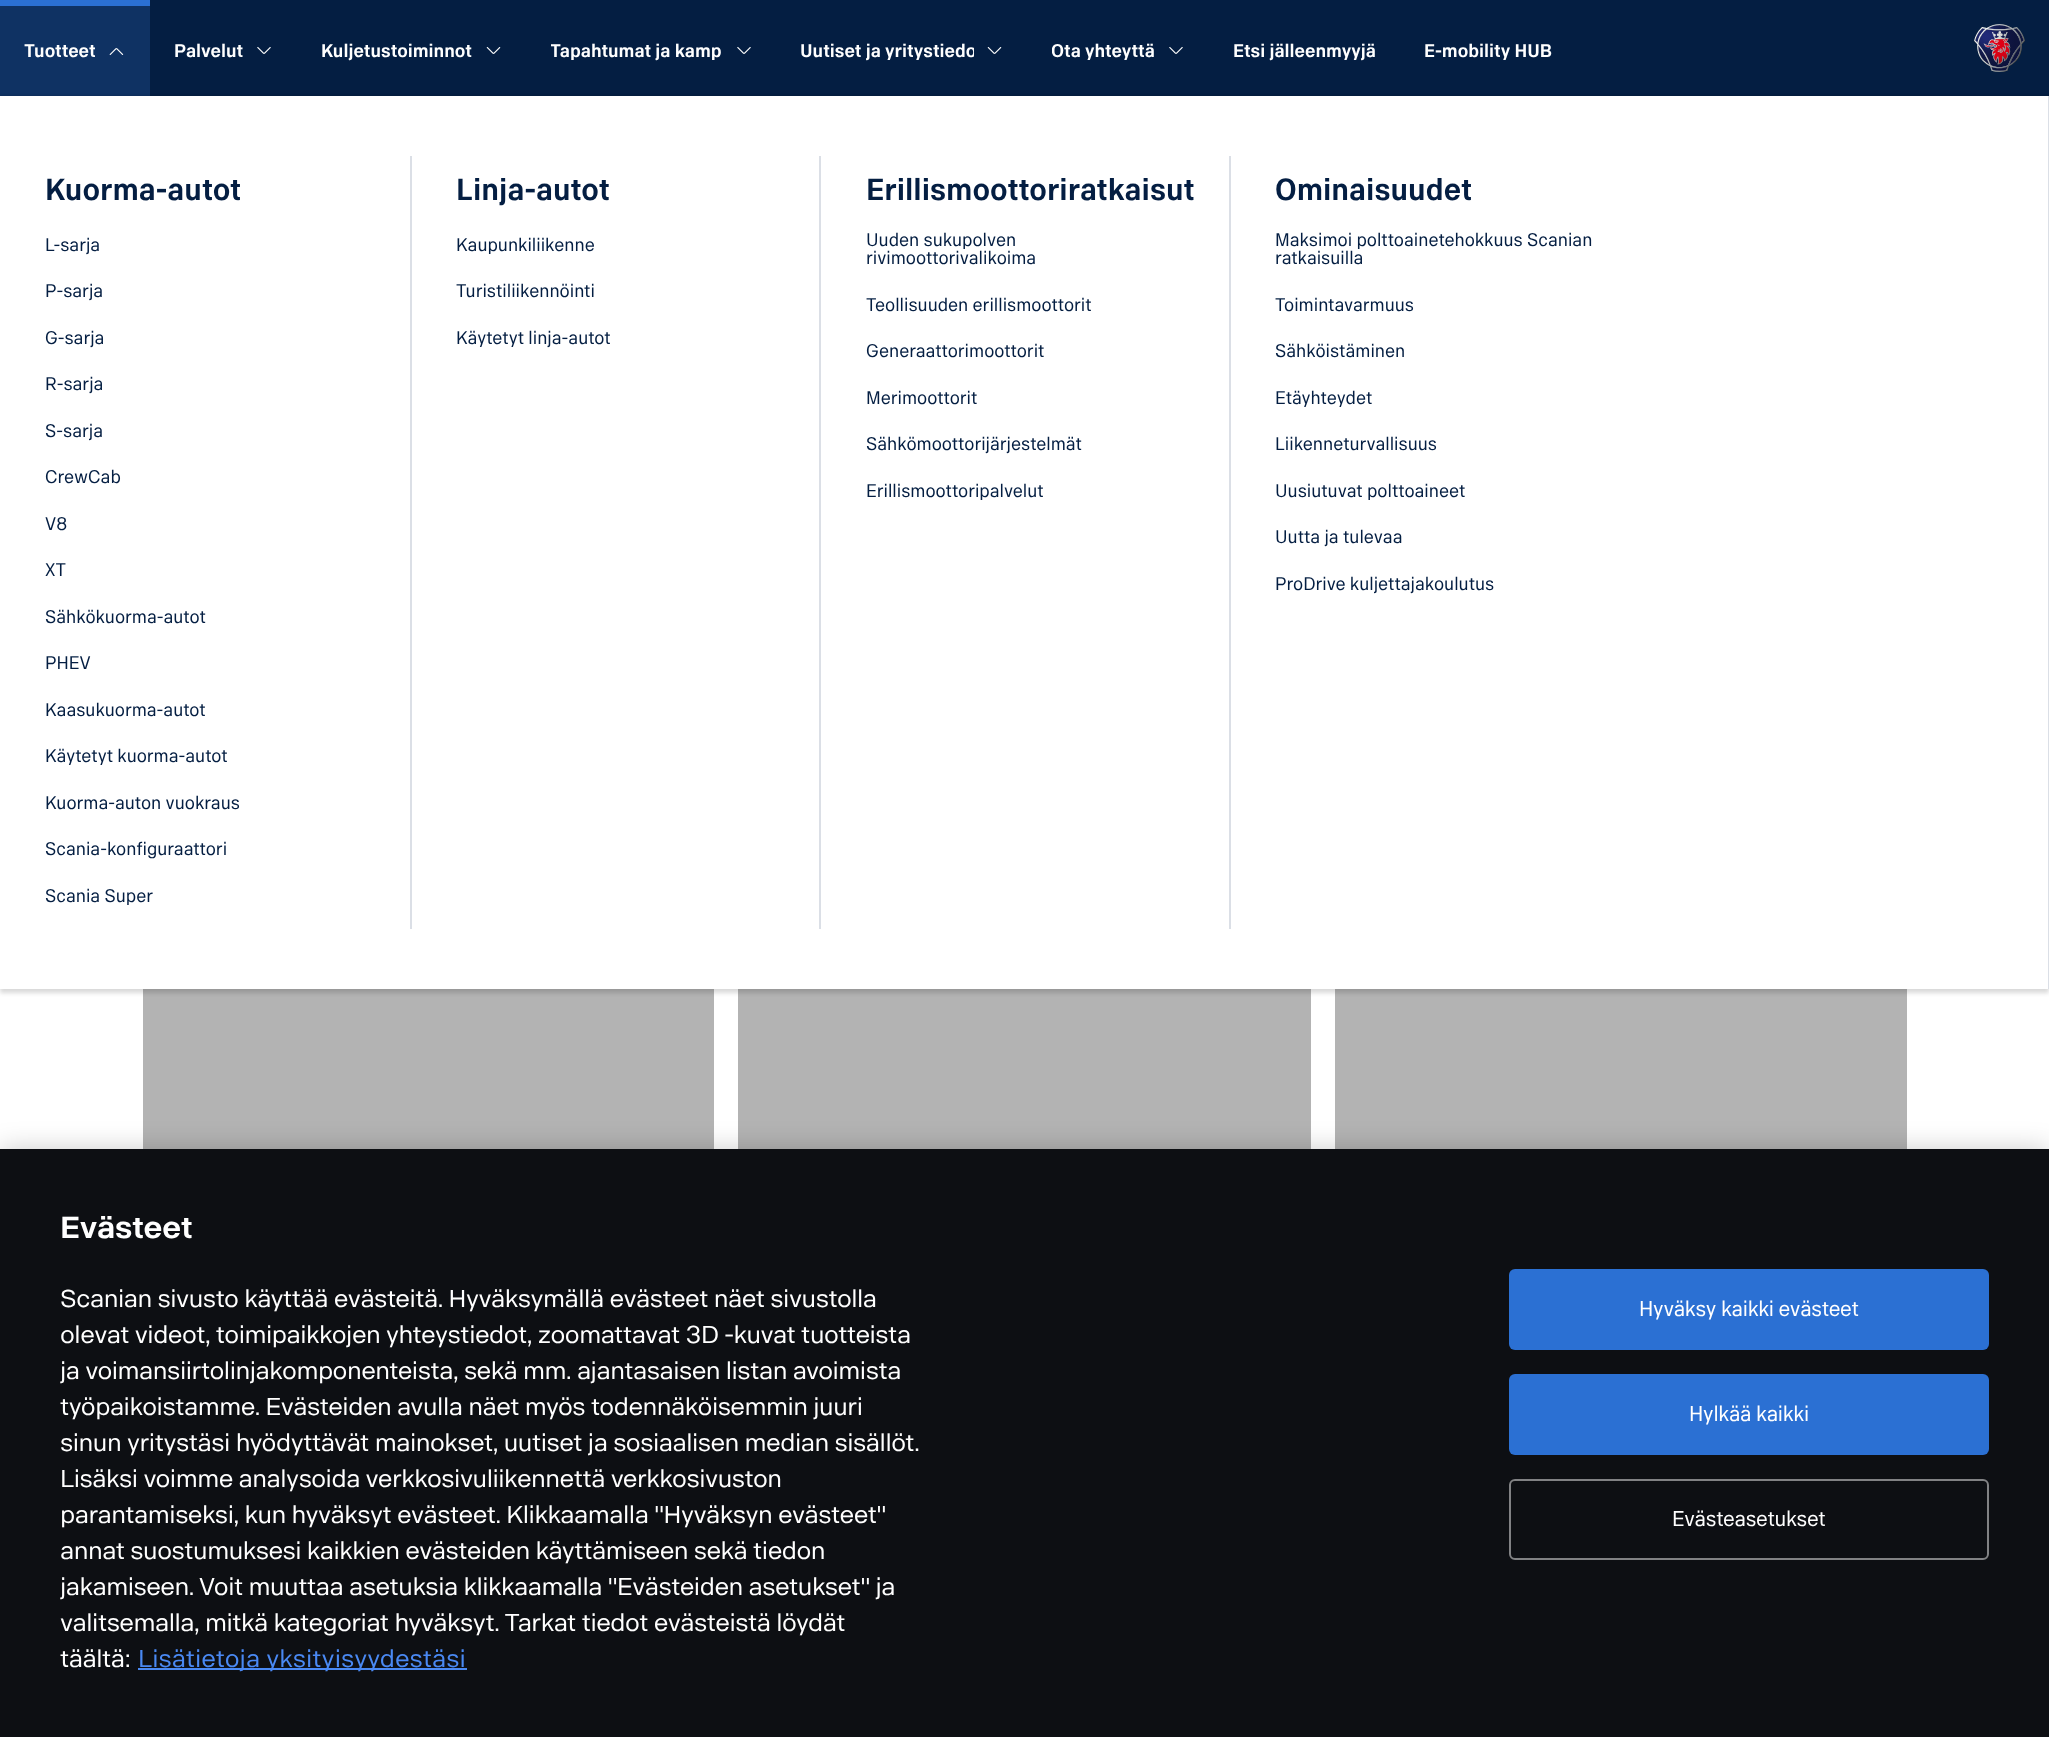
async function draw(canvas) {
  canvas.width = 2049;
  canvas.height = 1737;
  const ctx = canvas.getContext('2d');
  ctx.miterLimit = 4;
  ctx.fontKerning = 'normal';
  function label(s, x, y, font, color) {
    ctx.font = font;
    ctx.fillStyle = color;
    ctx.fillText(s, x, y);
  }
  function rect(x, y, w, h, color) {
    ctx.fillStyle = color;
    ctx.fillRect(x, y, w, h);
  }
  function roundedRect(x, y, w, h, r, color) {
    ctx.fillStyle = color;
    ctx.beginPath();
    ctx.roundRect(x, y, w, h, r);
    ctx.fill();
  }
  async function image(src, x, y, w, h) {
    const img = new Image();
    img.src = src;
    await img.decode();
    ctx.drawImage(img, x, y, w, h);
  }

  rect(0, 0, 2049, 1737, '#fff');
  rect(150, 0, 1899, 96, '#041e42');
  label('Palvelut', 174, 57, 'bold 18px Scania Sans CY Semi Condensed', '#fff');
  await image('assets/img1.png', 257, 47, 14, 7);
  label('Kuljetustoiminnot', 321, 57, 'bold 18px Scania Sans CY Semi Condensed', '#fff');
  await image('assets/img2.png', 486, 47, 15, 7);
  ctx.save();
  ctx.beginPath();
  ctx.rect(551, 24, 172, 54);
  ctx.clip();
  label('Tapahtumat ja kamp', 550, 57, 'bold 18px Scania Sans CY Semi Condensed', '#fff');
  ctx.restore();
  await image('assets/img1.png', 737, 47, 14, 7);
  ctx.save();
  ctx.beginPath();
  ctx.rect(801, 24, 173, 54);
  ctx.clip();
  label('Uutiset ja yritystiedo', 800, 57, 'bold 18px Scania Sans CY Semi Condensed', '#fff');
  ctx.restore();
  await image('assets/img2.png', 987, 47, 15, 7);
  ctx.save();
  ctx.beginPath();
  ctx.rect(1052, 24, 103, 54);
  ctx.clip();
  label('Ota yhteyttä', 1051, 57, 'bold 18px Scania Sans CY Semi Condensed', '#fff');
  ctx.restore();
  await image('assets/img1.png', 1169, 47, 14, 7);
  label('Etsi jälleenmyyjä', 1233, 57, 'bold 18px Scania Sans CY Semi Condensed', '#fff');
  label('E-mobility HUB', 1424, 57, 'bold 18px Scania Sans CY Semi Condensed', '#fff');
  rect(0, 6, 150, 90, '#0f3263');
  rect(0, 0, 150, 6, '#2b70d3');
  label('Tuotteet', 24, 57, 'bold 18px Scania Sans CY Semi Condensed', '#fff');
  await image('assets/img3.png', 109, 48, 15, 7);
  rect(143, 989, 571, 160, '#b3b3b3');
  rect(738, 989, 573, 160, '#b3b3b3');
  rect(1335, 989, 572, 160, '#b3b3b3');
  ctx.fillStyle = '#0000001a';
  ctx.filter = 'blur(1px)';
  ctx.beginPath();
  ctx.rect(0, 95, 2049, 892);
  ctx.fill();
  ctx.filter = 'none';
  ctx.fillStyle = '#00000026';
  ctx.filter = 'blur(2px)';
  ctx.beginPath();
  ctx.rect(0, 101, 2049, 892);
  ctx.fill();
  ctx.filter = 'none';
  rect(0, 96, 2048, 893, '#fff');
  rect(2048, 96, 1, 893, '#dbdfe6');
  label('Kuorma-autot', 45, 200, 'bold 30px Scania Sans CY Semi Condensed', '#041e42');
  label('L-sarja', 45, 251, '18px Scania Sans CY Semi Condensed', '#041e42');
  label('P-sarja', 45, 297, '18px Scania Sans CY Semi Condensed', '#041e42');
  label('G-sarja', 45, 344, '18px Scania Sans CY Semi Condensed', '#041e42');
  label('R-sarja', 45, 390, '18px Scania Sans CY Semi Condensed', '#041e42');
  label('S-sarja', 45, 437, '18px Scania Sans CY Semi Condensed', '#041e42');
  label('CrewCab', 45, 483, '18px Scania Sans CY Semi Condensed', '#041e42');
  label('V8', 45, 530, '18px Scania Sans CY Semi Condensed', '#041e42');
  label('XT', 45, 576, '18px Scania Sans CY Semi Condensed', '#041e42');
  label('Sähkökuorma-autot', 45, 623, '18px Scania Sans CY Semi Condensed', '#041e42');
  label('PHEV', 45, 669, '18px Scania Sans CY Semi Condensed', '#041e42');
  label('Kaasukuorma-autot', 45, 716, '18px Scania Sans CY Semi Condensed', '#041e42');
  label('Käytetyt kuorma-autot', 45, 762, '18px Scania Sans CY Semi Condensed', '#041e42');
  label('Kuorma-auton vuokraus', 45, 809, '18px Scania Sans CY Semi Condensed', '#041e42');
  label('Scania-konfiguraattori', 45, 855, '18px Scania Sans CY Semi Condensed', '#041e42');
  label('Scania Super', 45, 902, '18px Scania Sans CY Semi Condensed', '#041e42');
  rect(410, 156, 2, 773, '#dbdfe6');
  label('Linja-autot', 456, 200, 'bold 30px Scania Sans CY Semi Condensed', '#041e42');
  label('Kaupunkiliikenne', 456, 251, '18px Scania Sans CY Semi Condensed', '#041e42');
  label('Turistiliikennöinti', 456, 297, '18px Scania Sans CY Semi Condensed', '#041e42');
  label('Käytetyt linja-autot', 456, 344, '18px Scania Sans CY Semi Condensed', '#041e42');
  rect(819, 156, 2, 773, '#dbdfe6');
  label('Erillismoottoriratkaisut', 866, 200, 'bold 30px Scania Sans CY Semi Condensed', '#041e42');
  label('Uuden sukupolven', 866, 246, '18px Scania Sans CY Semi Condensed', '#041e42');
  label('rivimoottorivalikoima', 866, 264, '18px Scania Sans CY Semi Condensed', '#041e42');
  label('Teollisuuden erillismoottorit', 866, 311, '18px Scania Sans CY Semi Condensed', '#041e42');
  label('Generaattorimoottorit', 866, 357, '18px Scania Sans CY Semi Condensed', '#041e42');
  label('Merimoottorit', 866, 404, '18px Scania Sans CY Semi Condensed', '#041e42');
  label('Sähkömoottorijärjestelmät', 866, 450, '18px Scania Sans CY Semi Condensed', '#041e42');
  label('Erillismoottoripalvelut', 866, 497, '18px Scania Sans CY Semi Condensed', '#041e42');
  rect(1229, 156, 2, 773, '#dbdfe6');
  label('Ominaisuudet', 1275, 200, 'bold 30px Scania Sans CY Semi Condensed', '#041e42');
  label('Maksimoi polttoainetehokkuus Scanian', 1275, 246, '18px Scania Sans CY Semi Condensed', '#041e42');
  label('ratkaisuilla', 1275, 264, '18px Scania Sans CY Semi Condensed', '#041e42');
  label('Toimintavarmuus', 1275, 311, '18px Scania Sans CY Semi Condensed', '#041e42');
  label('Sähköistäminen', 1275, 357, '18px Scania Sans CY Semi Condensed', '#041e42');
  label('Etäyhteydet', 1275, 404, '18px Scania Sans CY Semi Condensed', '#041e42');
  label('Liikenneturvallisuus', 1275, 450, '18px Scania Sans CY Semi Condensed', '#041e42');
  label('Uusiutuvat polttoaineet', 1275, 497, '18px Scania Sans CY Semi Condensed', '#041e42');
  label('Uutta ja tulevaa', 1275, 543, '18px Scania Sans CY Semi Condensed', '#041e42');
  label('ProDrive kuljettajakoulutus', 1275, 590, '18px Scania Sans CY Semi Condensed', '#041e42');
  await image('assets/img4.png', 1974, 24, 51, 48);
  ctx.fillStyle = '#00000033';
  ctx.filter = 'blur(13.5px)';
  ctx.beginPath();
  ctx.rect(0, 1149, 2049, 588);
  ctx.fill();
  ctx.filter = 'none';
  rect(0, 1149, 2049, 588, '#0d0f13');
  ctx.letterSpacing = '-0.25px';
  label('Evästeet', 60, 1238, 'bold 30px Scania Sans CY', '#fff');
  ctx.letterSpacing = '-0.48px';
  label('Scanian sivusto käyttää evästeitä. Hyväksymällä evästeet näet sivustolla', 60, 1307, '24px Scania Sans CY', '#fff');
  label('olevat videot, toimipaikkojen yhteystiedot, zoomattavat 3D -kuvat tuotteista', 60, 1343, '24px Scania Sans CY', '#fff');
  label('ja voimansiirtolinjakomponenteista, sekä mm. ajantasaisen listan avoimista', 60, 1379, '24px Scania Sans CY', '#fff');
  label('työpaikoistamme. Evästeiden avulla näet myös todennäköisemmin juuri', 60, 1415, '24px Scania Sans CY', '#fff');
  label('sinun yritystäsi hyödyttävät mainokset, uutiset ja sosiaalisen median sisällöt.', 60, 1451, '24px Scania Sans CY', '#fff');
  label('Lisäksi voimme analysoida verkkosivuliikennettä verkkosivuston', 60, 1487, '24px Scania Sans CY', '#fff');
  label('parantamiseksi, kun hyväksyt evästeet. Klikkaamalla "Hyväksyn evästeet"', 60, 1523, '24px Scania Sans CY', '#fff');
  label('annat suostumuksesi kaikkien evästeiden käyttämiseen sekä tiedon', 60, 1559, '24px Scania Sans CY', '#fff');
  label('jakamiseen. Voit muuttaa asetuksia klikkaamalla "Evästeiden asetukset" ja', 60, 1595, '24px Scania Sans CY', '#fff');
  label('valitsemalla, mitkä kategoriat hyväksyt. Tarkat tiedot evästeistä löydät', 60, 1631, '24px Scania Sans CY', '#fff');
  label('täältä:', 60, 1667, '24px Scania Sans CY', '#fff');
  rect(138, 1668, 329, 2, '#4a89f3');
  ctx.letterSpacing = '0px';
  label('Lisätietoja yksityisyydestäsi', 138, 1667, '24px Scania Sans CY', '#4a89f3');
  roundedRect(1509, 1269, 480, 81, 6, '#2b70d3');
  ctx.letterSpacing = '-0.25px';
  label('Hyväksy kaikki evästeet', 1639, 1316, '21px Scania Sans CY Semi Condensed', '#fff');
  roundedRect(1509, 1374, 480, 81, 6, '#2b70d3');
  label('Hylkää kaikki', 1689, 1421, '21px Scania Sans CY Semi Condensed', '#fff');
  ctx.beginPath();
  ctx.roundRect(1510, 1480, 478, 79, 5);
  ctx.strokeStyle = '#818284';
  ctx.lineWidth = 2;
  ctx.stroke();
  label('Evästeasetukset', 1672, 1526, '21px Scania Sans CY Semi Condensed', '#fff');
}

draw(document.querySelector('canvas'));
